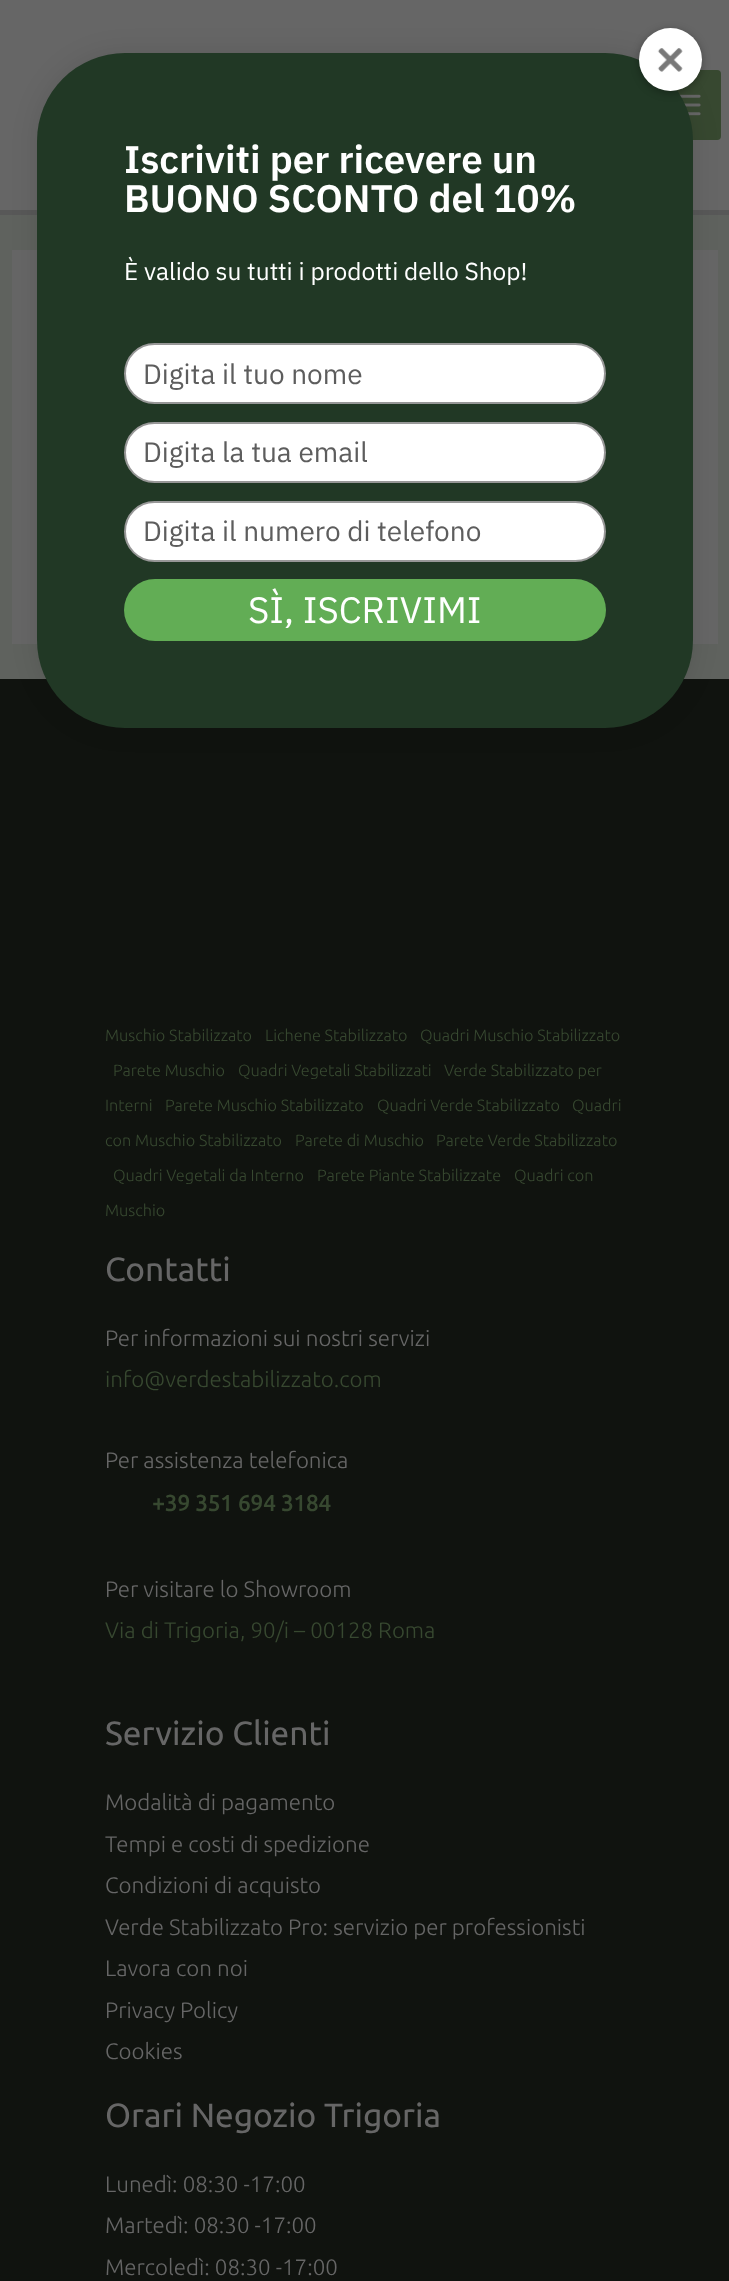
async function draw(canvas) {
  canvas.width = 729;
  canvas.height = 2281;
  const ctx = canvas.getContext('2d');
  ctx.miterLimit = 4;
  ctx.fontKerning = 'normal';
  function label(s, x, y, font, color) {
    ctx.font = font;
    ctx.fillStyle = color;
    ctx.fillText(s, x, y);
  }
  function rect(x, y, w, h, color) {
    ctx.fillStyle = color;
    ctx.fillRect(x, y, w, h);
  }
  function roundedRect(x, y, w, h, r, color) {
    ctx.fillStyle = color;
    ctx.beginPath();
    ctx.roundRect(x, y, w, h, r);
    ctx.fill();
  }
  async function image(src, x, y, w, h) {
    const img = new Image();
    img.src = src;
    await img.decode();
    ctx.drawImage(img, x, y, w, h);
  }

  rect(0, 0, 729, 2281, '#5f625e');
  rect(0, 0, 729, 210, '#666');
  rect(0, 210, 729, 5, '#585858');
  roundedRect(651, 70, 70, 70, 4, '#374830');
  await image('assets/img2.png', 679, 94, 22, 22);
  rect(12, 250, 706, 394, '#666');
  rect(0, 679, 729, 1602, '#10130f');
  ctx.fillStyle = '#0000001a';
  ctx.filter = 'blur(13px)';
  ctx.beginPath();
  ctx.roundRect(37, 53, 656, 675, 88);
  ctx.fill();
  ctx.filter = 'none';
  roundedRect(37, 53, 656, 675, 88, '#213825');
  ctx.fillStyle = '#0000004d';
  ctx.filter = 'blur(4.5px)';
  ctx.beginPath();
  ctx.roundRect(639, 30, 63, 63, 31.5);
  ctx.fill();
  ctx.filter = 'none';
  ctx.fillStyle = '#fff';
  ctx.beginPath();
  ctx.arc(670.5, 59.5, 31.5, 0, 2 * Math.PI);
  ctx.fill();
  await image('assets/img1.png', 657, 48, 26, 24);
  label('Iscriviti per ricevere un', 124, 173, '600 38.5px IBM Plex Sans', '#fff');
  label('BUONO SCONTO del 10%', 124, 212, '600 38.5px IBM Plex Sans', '#fff');
  label('È valido su tutti i prodotti dello Shop!', 124, 280, '24.5px IBM Plex Sans', '#fff');
  ctx.beginPath();
  ctx.roundRect(125, 344, 480, 59, 29.5);
  ctx.fill();
  ctx.strokeStyle = '#979797';
  ctx.lineWidth = 2;
  ctx.stroke();
  label('Digita il tuo nome', 143, 384, '28px IBM Plex Sans', '#5d5d5d');
  ctx.fillStyle = '#fff';
  ctx.beginPath();
  ctx.roundRect(125, 423, 480, 59, 29.5);
  ctx.fill();
  ctx.stroke();
  label('Digita la tua email', 143, 462, '28px IBM Plex Sans', '#5d5d5d');
  ctx.fillStyle = '#fff';
  ctx.beginPath();
  ctx.roundRect(125, 502, 480, 59, 29.5);
  ctx.fill();
  ctx.stroke();
  label('Digita il numero di telefono', 143, 541, '28px IBM Plex Sans', '#5d5d5d');
  roundedRect(124, 579, 482, 62, 31, '#62ad55');
  label('SÌ, ISCRIVIMI', 248, 623, '36.75px IBM Plex Sans', '#fff');
  label('Muschio Stabilizzato', 105, 1041, '300 16.25px Ubuntu', '#374830');
  label('Lichene Stabilizzato', 265, 1041, '300 16.25px Ubuntu', '#374830');
  label('Quadri Muschio Stabilizzato', 420, 1041, '300 16.25px Ubuntu', '#374830');
  label('Parete Muschio', 113, 1076, '300 16.25px Ubuntu', '#374830');
  label('Quadri Vegetali Stabilizzati', 238, 1076, '300 16.25px Ubuntu', '#374830');
  label('Verde Stabilizzato per', 444, 1076, '300 16.25px Ubuntu', '#374830');
  label('Interni', 105, 1111, '300 16.25px Ubuntu', '#374830');
  label('Parete Muschio Stabilizzato', 165, 1111, '300 16.25px Ubuntu', '#374830');
  label('Quadri Verde Stabilizzato', 377, 1111, '300 16.25px Ubuntu', '#374830');
  label('Quadri', 572, 1111, '300 16.25px Ubuntu', '#374830');
  label('con Muschio Stabilizzato', 105, 1146, '300 16.25px Ubuntu', '#374830');
  label('Parete di Muschio', 295, 1146, '300 16.25px Ubuntu', '#374830');
  label('Parete Verde Stabilizzato', 436, 1146, '300 16.25px Ubuntu', '#374830');
  label('Quadri Vegetali da Interno', 113, 1181, '300 16.25px Ubuntu', '#374830');
  label('Parete Piante Stabilizzate', 317, 1181, '300 16.25px Ubuntu', '#374830');
  label('Quadri con', 514, 1181, '300 16.25px Ubuntu', '#374830');
  label('Muschio', 105, 1216, '300 16.25px Ubuntu', '#374830');
  label('Contatti', 105, 1281, '33.5px Ubuntu', '#666');
  label('Per informazioni sui nostri servizi', 105, 1346, '300 22.3px Ubuntu', '#666');
  label('info@verdestabilizzato.com', 105, 1387, '300 22.3px Ubuntu', '#374830');
  label('Per assistenza telefonica', 105, 1468, '300 22.3px Ubuntu', '#666');
  label('+39 351 694 3184', 152, 1511, 'bold 22.3px Ubuntu', '#374830');
  label('Per visitare lo Showroom', 105, 1597, '300 22.3px Ubuntu', '#666');
  label('Via di Trigoria, 90/i – 00128 Roma', 105, 1638, '300 22.3px Ubuntu', '#374830');
  label('Servizio Clienti', 105, 1745, '33.5px Ubuntu', '#666');
  label('Modalità di pagamento', 105, 1810, '300 22.3px Ubuntu', '#666');
  label('Tempi e costi di spedizione', 105, 1852, '300 22.3px Ubuntu', '#666');
  label('Condizioni di acquisto', 105, 1893, '300 22.3px Ubuntu', '#666');
  label('Verde Stabilizzato Pro: servizio per professionisti', 105, 1935, '300 22.3px Ubuntu', '#666');
  label('Lavora con noi', 105, 1976, '300 22.3px Ubuntu', '#666');
  label('Privacy Policy', 105, 2018, '300 22.3px Ubuntu', '#666');
  label('Cookies', 105, 2059, '300 22.3px Ubuntu', '#666');
  label('Orari Negozio Trigoria', 105, 2127, '33.5px Ubuntu', '#666');
  label('Lunedì: 08:30 -17:00', 105, 2192, '300 22.3px Ubuntu', '#666');
  label('Martedì: 08:30 -17:00', 105, 2233, '300 22.3px Ubuntu', '#666');
  label('Mercoledì: 08:30 -17:00', 105, 2275, '300 22.3px Ubuntu', '#666');
}

draw(document.querySelector('canvas'));
